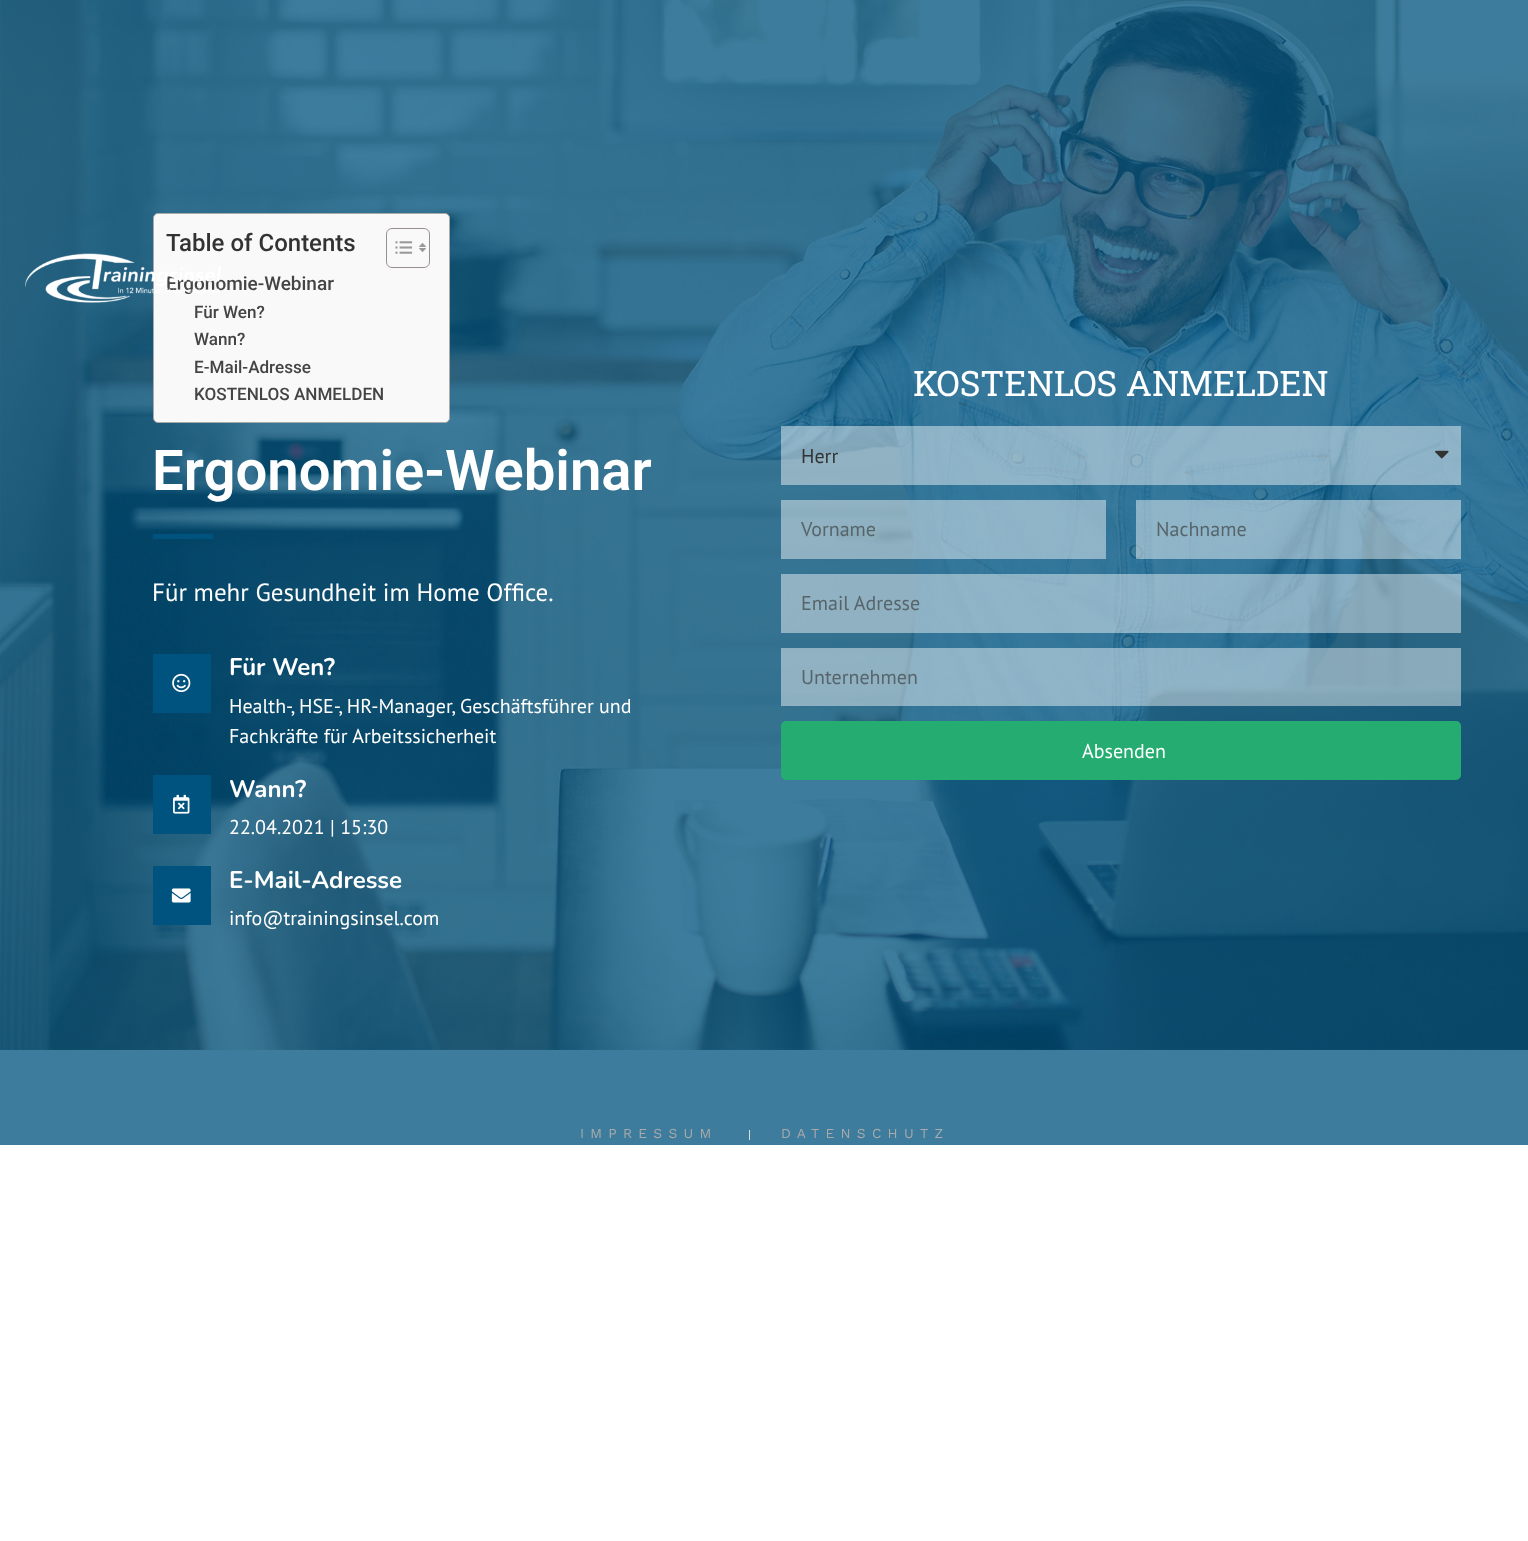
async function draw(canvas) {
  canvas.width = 1528;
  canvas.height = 1541;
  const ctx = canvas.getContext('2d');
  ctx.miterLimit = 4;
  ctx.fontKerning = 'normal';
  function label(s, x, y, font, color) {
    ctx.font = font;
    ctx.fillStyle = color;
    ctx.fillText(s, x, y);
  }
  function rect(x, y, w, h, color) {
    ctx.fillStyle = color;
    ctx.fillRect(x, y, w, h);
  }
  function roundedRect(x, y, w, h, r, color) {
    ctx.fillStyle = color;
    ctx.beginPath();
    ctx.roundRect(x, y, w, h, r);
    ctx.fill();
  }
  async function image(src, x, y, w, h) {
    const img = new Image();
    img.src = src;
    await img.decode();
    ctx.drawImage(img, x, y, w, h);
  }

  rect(0, 0, 1528, 1541, '#fff');
  rect(0, 1050, 1528, 95, '#3d7c9d');
  await image('assets/img2.png', 0, 0, 1528, 1050);
  ctx.fillStyle = '#f9f9f9';
  ctx.beginPath();
  ctx.roundRect(153.5, 213.5, 296, 209, 4.5);
  ctx.fill();
  ctx.strokeStyle = '#aaa';
  ctx.stroke();
  label('Ergonomie-Webinar', 166, 290, '500 19px Roboto', '#444');
  await image('assets/img1.png', 25, 253, 196, 50);
  label('Table of Contents', 166, 251, '500 24px Roboto', '#333');
  ctx.beginPath();
  ctx.roundRect(386.5, 228.5, 43, 39, 5.5);
  ctx.strokeStyle = '#999191';
  ctx.stroke();
  await image('assets/img3.png', 395, 241, 18, 13);
  await image('assets/img4.png', 419, 243, 7, 9);
  label('Für Wen?', 194, 318, '500 17.1px Roboto', '#444');
  label('Wann?', 194, 345, '500 17.1px Roboto', '#444');
  label('E-Mail-Adresse', 194, 373, '500 17.1px Roboto', '#444');
  label('KOSTENLOS ANMELDEN', 194, 400, '500 17.1px Roboto', '#444');
  label('Ergonomie-Webinar', 152, 490, '600 56.25px Roboto', '#fff');
  rect(153, 534, 60, 5, '#00537e');
  label('Für mehr Gesundheit im Home Office.', 152, 601, '25px PT Sans', '#fff');
  rect(153, 654, 58, 59, '#00537e');
  await image('assets/img5.png', 172, 673, 19, 20);
  label('Für Wen?', 229, 675, 'bold 24px Nunito', '#fff');
  label('Health-, HSE-, HR-Manager, Geschäftsführer und', 229, 713, '20px PT Sans', '#fff');
  label('Fachkräfte für Arbeitssicherheit', 229, 743, '20px PT Sans', '#fff');
  rect(153, 775, 58, 59, '#00537e');
  await image('assets/img6.png', 173, 794, 17, 20);
  label('Wann?', 229, 797, 'bold 24px Nunito', '#fff');
  label('22.04.2021 | 15:30', 229, 834, '20px PT Sans', '#fff');
  rect(153, 866, 58, 59, '#00537e');
  await image('assets/img7.png', 171, 888, 20, 15);
  label('E-Mail-Adresse', 229, 888, 'bold 24px Nunito', '#fff');
  label('info@trainingsinsel.com', 229, 925, '20px PT Sans', '#fff');
  label('KOSTENLOS ANMELDEN', 913, 396, '35px Roboto Slab', '#fff');
  rect(781, 426, 680, 59, '#ffffff73');
  label('Herr', 801, 463, '20px PT Sans', '#333');
  await image('assets/img8.png', 1435, 450, 14, 9);
  rect(781, 500, 325, 59, '#ffffff73');
  label('Vorname', 801, 536, '20px PT Sans', '#57656b');
  rect(1136, 500, 325, 59, '#ffffff73');
  label('Nachname', 1156, 536, '20px PT Sans', '#57656b');
  rect(781, 574, 680, 59, '#ffffff73');
  label('Email Adresse', 801, 610, '20px PT Sans', '#57656b');
  rect(781, 648, 680, 58, '#ffffff73');
  label('Unternehmen', 801, 684, '20px PT Sans', '#57656b');
  roundedRect(781, 721, 680, 59, 5, '#25ac70');
  label('Absenden', 1082, 758, '20px PT Sans', '#fff');
  ctx.letterSpacing = '6.25px';
  label('IMPRESSUM', 580, 1138, '13.75px Work Sans', '#aaa');
  rect(749, 1130, 1, 10, '#ddd');
  label('DATENSCHUTZ', 781, 1138, '13.75px Work Sans', '#aaa');
}

draw(document.querySelector('canvas'));
